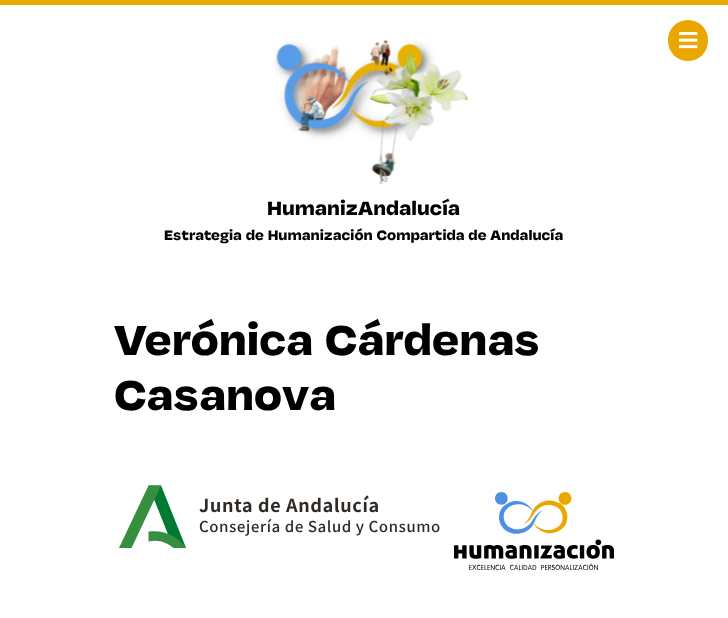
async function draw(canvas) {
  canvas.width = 728;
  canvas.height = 618;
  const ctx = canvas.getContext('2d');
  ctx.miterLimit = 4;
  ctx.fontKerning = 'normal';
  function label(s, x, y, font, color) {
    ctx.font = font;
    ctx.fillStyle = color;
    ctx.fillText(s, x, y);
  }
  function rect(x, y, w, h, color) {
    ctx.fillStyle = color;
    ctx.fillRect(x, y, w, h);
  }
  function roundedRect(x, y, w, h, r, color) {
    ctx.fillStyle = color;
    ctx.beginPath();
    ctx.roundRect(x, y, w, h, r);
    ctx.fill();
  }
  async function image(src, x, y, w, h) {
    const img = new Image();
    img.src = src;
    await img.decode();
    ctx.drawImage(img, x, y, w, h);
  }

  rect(0, 0, 728, 618, '#fff');
  rect(0, 0, 728, 5, '#eaa700');
  await image('assets/img1.png', 274, 40, 194, 144);
  roundedRect(668, 20, 40, 41, 20, '#eaa700');
  await image('assets/img2.png', 679, 32, 19, 17);
  label('HumanizAndalucía', 267, 215, 'bold 21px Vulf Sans', '#000');
  label('Estrategia de Humanización Compartida de Andalucía', 164, 240, 'bold 15px Vulf Sans', '#000');
  label('Verónica Cárdenas', 114, 355, 'bold 46px Vulf Sans', '#000');
  label('Casanova', 114, 410, 'bold 46px Vulf Sans', '#000');
  await image('assets/img3.png', 119, 485, 321, 63);
  await image('assets/img4.png', 454, 492, 160, 78);
}

draw(document.querySelector('canvas'));
